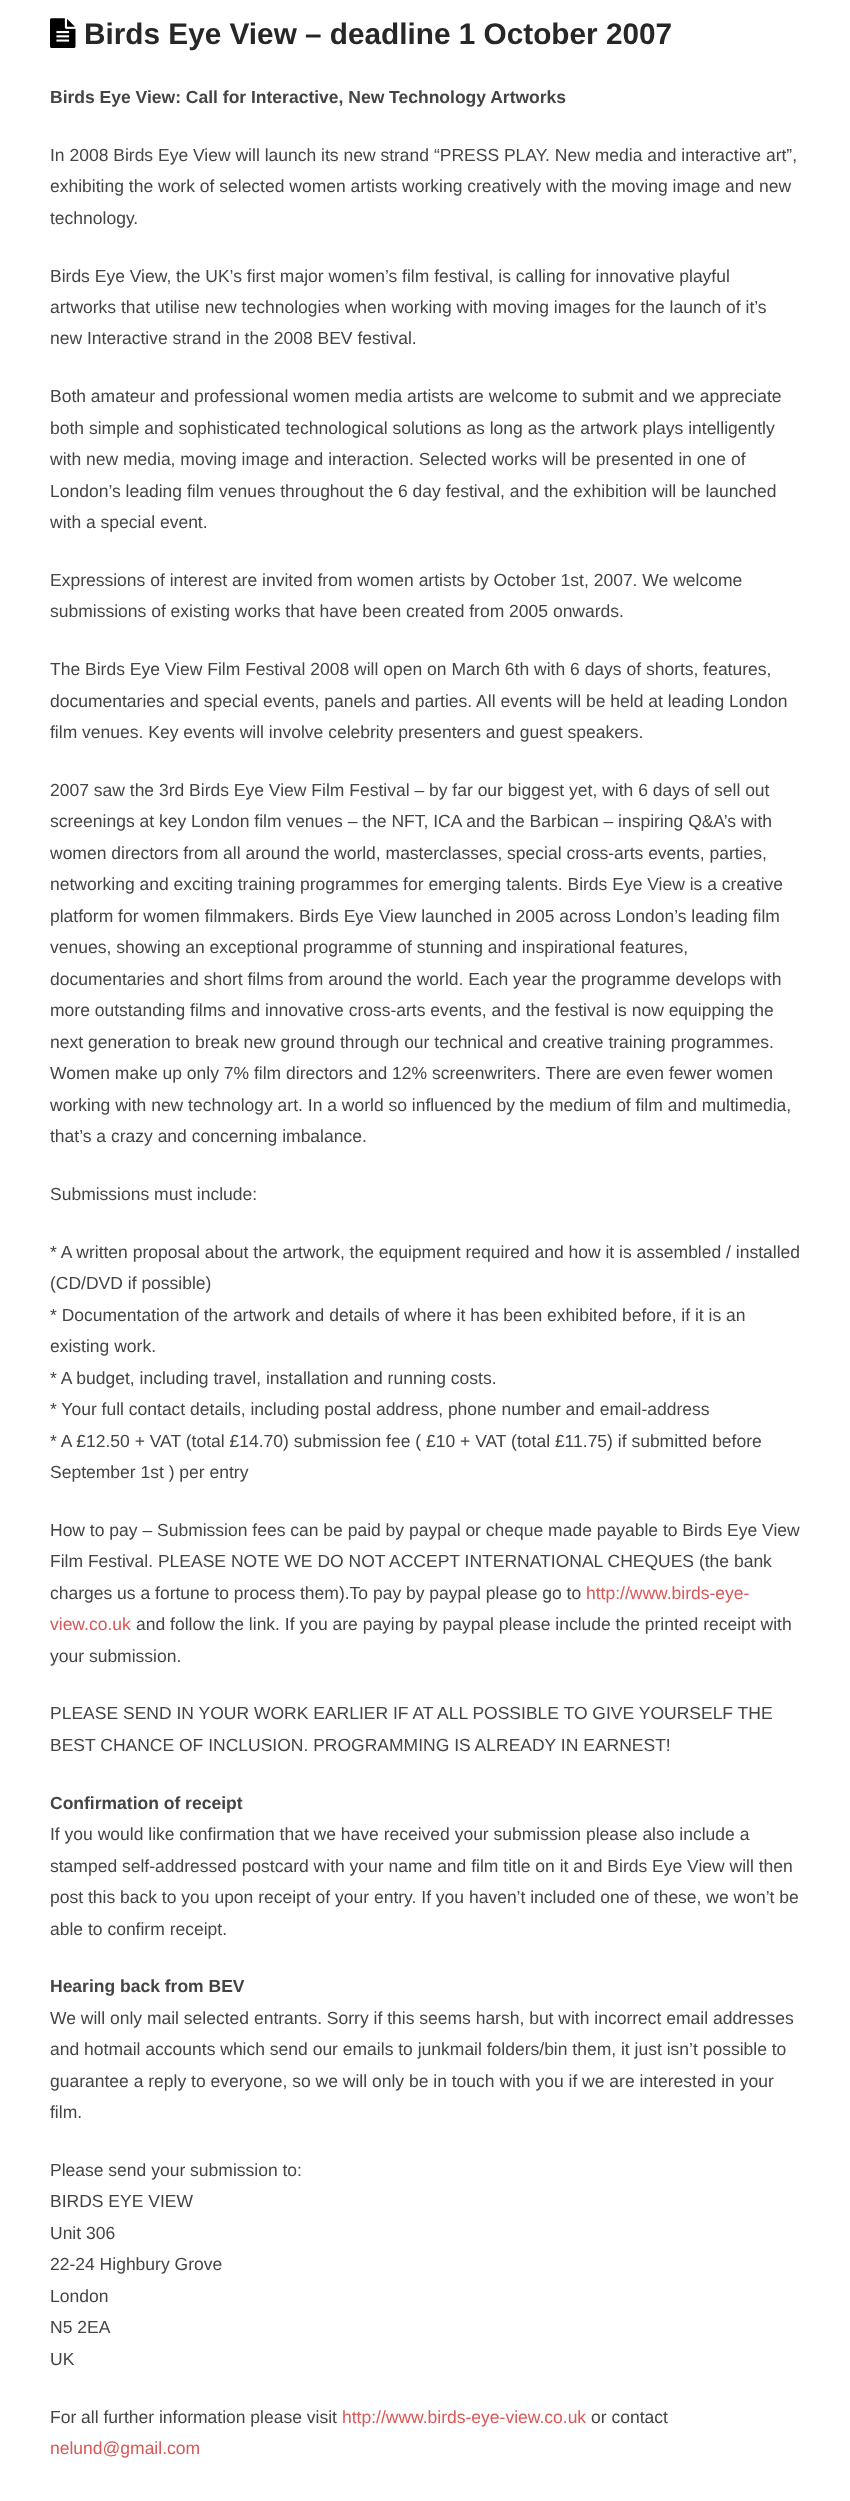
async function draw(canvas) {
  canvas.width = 850;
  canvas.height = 2501;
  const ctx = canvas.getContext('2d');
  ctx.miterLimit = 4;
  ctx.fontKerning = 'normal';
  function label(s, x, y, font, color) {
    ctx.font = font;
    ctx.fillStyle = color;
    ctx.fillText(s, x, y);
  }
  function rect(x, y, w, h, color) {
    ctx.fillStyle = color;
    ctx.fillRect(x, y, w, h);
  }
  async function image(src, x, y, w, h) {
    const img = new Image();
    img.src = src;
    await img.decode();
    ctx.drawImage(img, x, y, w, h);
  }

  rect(0, 0, 850, 2501, '#fff');
  await image('assets/img1.png', 50, 18, 26, 30);
  label('Birds Eye View – deadline 1 October 2007', 84, 44, 'bold 29.75px Liberation Sans', '#272727');
  label('Birds Eye View: Call for Interactive, New Technology Artworks', 50, 103, 'bold 17.5px Liberation Sans', '#444');
  label('In 2008 Birds Eye View will launch its new strand “PRESS PLAY. New media and interactive art”,', 50, 161, '17.5px Liberation Sans', '#444');
  label('exhibiting the work of selected women artists working creatively with the moving image and new', 50, 192, '17.5px Liberation Sans', '#444');
  label('technology.', 50, 224, '17.5px Liberation Sans', '#444');
  label('Birds Eye View, the UK’s first major women’s film festival, is calling for innovative playful', 50, 282, '17.5px Liberation Sans', '#444');
  label('artworks that utilise new technologies when working with moving images for the launch of it’s', 50, 313, '17.5px Liberation Sans', '#444');
  label('new Interactive strand in the 2008 BEV festival.', 50, 344, '17.5px Liberation Sans', '#444');
  label('Both amateur and professional women media artists are welcome to submit and we appreciate', 50, 402, '17.5px Liberation Sans', '#444');
  label('both simple and sophisticated technological solutions as long as the artwork plays intelligently', 50, 434, '17.5px Liberation Sans', '#444');
  label('with new media, moving image and interaction. Selected works will be presented in one of', 50, 465, '17.5px Liberation Sans', '#444');
  label('London’s leading film venues throughout the 6 day festival, and the exhibition will be launched', 50, 497, '17.5px Liberation Sans', '#444');
  label('with a special event.', 50, 528, '17.5px Liberation Sans', '#444');
  label('Expressions of interest are invited from women artists by October 1st, 2007. We welcome', 50, 586, '17.5px Liberation Sans', '#444');
  label('submissions of existing works that have been created from 2005 onwards.', 50, 617, '17.5px Liberation Sans', '#444');
  label('The Birds Eye View Film Festival 2008 will open on March 6th with 6 days of shorts, features,', 50, 675, '17.5px Liberation Sans', '#444');
  label('documentaries and special events, panels and parties. All events will be held at leading London', 50, 707, '17.5px Liberation Sans', '#444');
  label('film venues. Key events will involve celebrity presenters and guest speakers.', 50, 738, '17.5px Liberation Sans', '#444');
  label('2007 saw the 3rd Birds Eye View Film Festival – by far our biggest yet, with 6 days of sell out', 50, 796, '17.5px Liberation Sans', '#444');
  label('screenings at key London film venues – the NFT, ICA and the Barbican – inspiring Q&A’s with', 50, 827, '17.5px Liberation Sans', '#444');
  label('women directors from all around the world, masterclasses, special cross-arts events, parties,', 50, 859, '17.5px Liberation Sans', '#444');
  label('networking and exciting training programmes for emerging talents. Birds Eye View is a creative', 50, 890, '17.5px Liberation Sans', '#444');
  label('platform for women filmmakers. Birds Eye View launched in 2005 across London’s leading film', 50, 922, '17.5px Liberation Sans', '#444');
  label('venues, showing an exceptional programme of stunning and inspirational features,', 50, 953, '17.5px Liberation Sans', '#444');
  label('documentaries and short films from around the world. Each year the programme develops with', 50, 985, '17.5px Liberation Sans', '#444');
  label('more outstanding films and innovative cross-arts events, and the festival is now equipping the', 50, 1016, '17.5px Liberation Sans', '#444');
  label('next generation to break new ground through our technical and creative training programmes.', 50, 1048, '17.5px Liberation Sans', '#444');
  label('Women make up only 7% film directors and 12% screenwriters. There are even fewer women', 50, 1079, '17.5px Liberation Sans', '#444');
  label('working with new technology art. In a world so influenced by the medium of film and multimedia,', 50, 1111, '17.5px Liberation Sans', '#444');
  label('that’s a crazy and concerning imbalance.', 50, 1142, '17.5px Liberation Sans', '#444');
  label('Submissions must include:', 50, 1200, '17.5px Liberation Sans', '#444');
  label('* A written proposal about the artwork, the equipment required and how it is assembled / installed', 50, 1258, '17.5px Liberation Sans', '#444');
  label('(CD/DVD if possible)', 50, 1289, '17.5px Liberation Sans', '#444');
  label('* Documentation of the artwork and details of where it has been exhibited before, if it is an', 50, 1321, '17.5px Liberation Sans', '#444');
  label('existing work.', 50, 1352, '17.5px Liberation Sans', '#444');
  label('* A budget, including travel, installation and running costs.', 50, 1384, '17.5px Liberation Sans', '#444');
  label('* Your full contact details, including postal address, phone number and email-address', 50, 1415, '17.5px Liberation Sans', '#444');
  label('* A £12.50 + VAT (total £14.70) submission fee ( £10 + VAT (total £11.75) if submitted before', 50, 1447, '17.5px Liberation Sans', '#444');
  label('September 1st ) per entry', 50, 1478, '17.5px Liberation Sans', '#444');
  label('How to pay – Submission fees can be paid by paypal or cheque made payable to Birds Eye View', 50, 1536, '17.5px Liberation Sans', '#444');
  label('Film Festival. PLEASE NOTE WE DO NOT ACCEPT INTERNATIONAL CHEQUES (the bank', 50, 1567, '17.5px Liberation Sans', '#444');
  label('charges us a fortune to process them).To pay by paypal please go to', 50, 1599, '17.5px Liberation Sans', '#444');
  label('http://www.birds-eye-', 586, 1599, '17.5px Liberation Sans', '#d95757');
  label('view.co.uk', 50, 1630, '17.5px Liberation Sans', '#d95757');
  label('and follow the link. If you are paying by paypal please include the printed receipt with', 136, 1630, '17.5px Liberation Sans', '#444');
  label('your submission.', 50, 1662, '17.5px Liberation Sans', '#444');
  label('PLEASE SEND IN YOUR WORK EARLIER IF AT ALL POSSIBLE TO GIVE YOURSELF THE', 50, 1719, '17.5px Liberation Sans', '#444');
  label('BEST CHANCE OF INCLUSION. PROGRAMMING IS ALREADY IN EARNEST!', 50, 1751, '17.5px Liberation Sans', '#444');
  label('Confirmation of receipt', 50, 1809, 'bold 17.5px Liberation Sans', '#444');
  label('If you would like confirmation that we have received your submission please also include a', 50, 1840, '17.5px Liberation Sans', '#444');
  label('stamped self-addressed postcard with your name and film title on it and Birds Eye View will then', 50, 1872, '17.5px Liberation Sans', '#444');
  label('post this back to you upon receipt of your entry. If you haven’t included one of these, we won’t be', 50, 1903, '17.5px Liberation Sans', '#444');
  label('able to confirm receipt.', 50, 1935, '17.5px Liberation Sans', '#444');
  label('Hearing back from BEV', 50, 1992, 'bold 17.5px Liberation Sans', '#444');
  label('We will only mail selected entrants. Sorry if this seems harsh, but with incorrect email addresses', 50, 2024, '17.5px Liberation Sans', '#444');
  label('and hotmail accounts which send our emails to junkmail folders/bin them, it just isn’t possible to', 50, 2055, '17.5px Liberation Sans', '#444');
  label('guarantee a reply to everyone, so we will only be in touch with you if we are interested in your', 50, 2087, '17.5px Liberation Sans', '#444');
  label('film.', 50, 2118, '17.5px Liberation Sans', '#444');
  label('Please send your submission to:', 50, 2176, '17.5px Liberation Sans', '#444');
  label('BIRDS EYE VIEW', 50, 2207, '17.5px Liberation Sans', '#444');
  label('Unit 306', 50, 2239, '17.5px Liberation Sans', '#444');
  label('22-24 Highbury Grove', 50, 2270, '17.5px Liberation Sans', '#444');
  label('London', 50, 2302, '17.5px Liberation Sans', '#444');
  label('N5 2EA', 50, 2333, '17.5px Liberation Sans', '#444');
  label('UK', 50, 2365, '17.5px Liberation Sans', '#444');
  label('For all further information please visit', 50, 2423, '17.5px Liberation Sans', '#444');
  label('http://www.birds-eye-view.co.uk', 342, 2423, '17.5px Liberation Sans', '#d95757');
  label('or contact', 591, 2423, '17.5px Liberation Sans', '#444');
  label('nelund@gmail.com', 50, 2454, '17.5px Liberation Sans', '#d95757');
}

draw(document.querySelector('canvas'));
